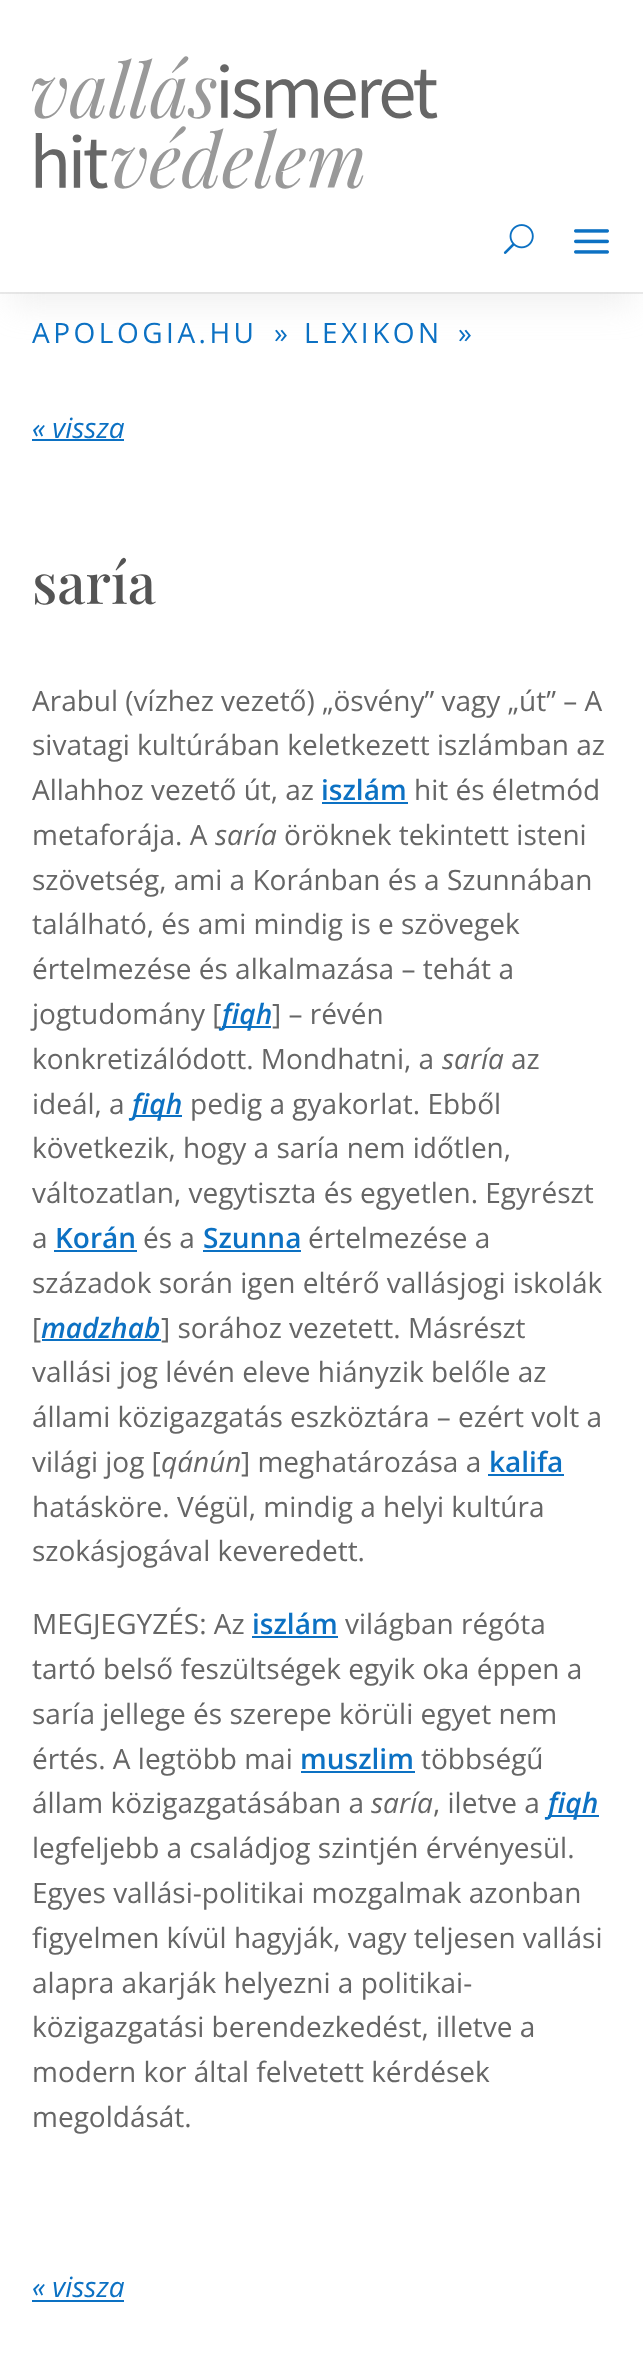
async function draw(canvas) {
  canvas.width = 643;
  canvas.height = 2358;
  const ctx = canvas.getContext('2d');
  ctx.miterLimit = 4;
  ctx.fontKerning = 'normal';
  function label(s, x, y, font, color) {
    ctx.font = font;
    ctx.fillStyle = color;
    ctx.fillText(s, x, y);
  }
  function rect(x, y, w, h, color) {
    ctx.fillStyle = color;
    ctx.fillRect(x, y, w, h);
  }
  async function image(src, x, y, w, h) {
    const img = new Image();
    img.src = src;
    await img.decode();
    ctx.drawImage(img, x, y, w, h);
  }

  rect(0, 0, 643, 2358, '#eaeaea');
  rect(0, 294, 643, 2064, '#fff');
  ctx.fillStyle = '#cecece4d';
  ctx.filter = 'blur(16px)';
  ctx.beginPath();
  ctx.rect(11, 32, 623, 273);
  ctx.fill();
  ctx.filter = 'none';
  rect(0, 0, 643, 292, '#fff');
  await image('assets/img1.png', 32, 56, 406, 133);
  await image('assets/img2.png', 503, 224, 31, 30);
  await image('assets/img3.png', 574, 229, 35, 25);
  ctx.letterSpacing = '3.5px';
  label('APOLOGIA.HU', 32, 343, '28px Open Sans', '#0c71c3');
  ctx.letterSpacing = '0px';
  label('»', 274, 343, '28px Open Sans', '#0c71c3');
  ctx.letterSpacing = '3.5px';
  label('LEXIKON', 304, 343, '28px Open Sans', '#0c71c3');
  ctx.letterSpacing = '0px';
  label('»', 458, 343, '28px Open Sans', '#0c71c3');
  label('« vissza', 32, 438, 'italic 28px Open Sans', '#0c71c3');
  rect(32, 439, 92, 2, '#0c71c3');
  label('saría', 32, 604, '500 56px Playfair Display', '#545454');
  label('Arabul (vízhez vezető) „ösvény” vagy „út” – A', 32, 711, '28px Open Sans', '#666');
  label('sivatagi kultúrában keletkezett iszlámban az', 32, 755, '28px Open Sans', '#666');
  label('Allahhoz vezető út, az', 32, 800, '28px Open Sans', '#666');
  label('iszlám', 321, 800, '600 28px Open Sans', '#0c71c3');
  rect(322, 802, 86, 2, '#0c71c3');
  label('hit és életmód', 414, 800, '28px Open Sans', '#666');
  label('metaforája. A', 32, 845, '28px Open Sans', '#666');
  label('saría', 215, 845, 'italic 28px Open Sans', '#666');
  label('öröknek tekintett isteni', 284, 845, '28px Open Sans', '#666');
  label('szövetség, ami a Koránban és a Szunnában', 32, 890, '28px Open Sans', '#666');
  label('található, és ami mindig is e szövegek', 32, 934, '28px Open Sans', '#666');
  label('értelmezése és alkalmazása – tehát a', 32, 979, '28px Open Sans', '#666');
  label('jogtudomány [', 32, 1024, '28px Open Sans', '#666');
  rect(222, 1026, 49, 2, '#0c71c3');
  label('fiqh', 222, 1024, 'italic 600 28px Open Sans', '#0c71c3');
  label('] – révén', 272, 1024, '28px Open Sans', '#666');
  label('konkretizálódott. Mondhatni, a', 32, 1069, '28px Open Sans', '#666');
  label('saría', 442, 1069, 'italic 28px Open Sans', '#666');
  label('az', 511, 1069, '28px Open Sans', '#666');
  label('ideál, a', 32, 1114, '28px Open Sans', '#666');
  rect(133, 1115, 49, 2, '#0c71c3');
  label('fiqh', 132, 1114, 'italic 600 28px Open Sans', '#0c71c3');
  label('pedig a gyakorlat. Ebből', 190, 1114, '28px Open Sans', '#666');
  label('következik, hogy a saría nem időtlen,', 32, 1158, '28px Open Sans', '#666');
  label('változatlan, vegytiszta és egyetlen. Egyrészt', 32, 1203, '28px Open Sans', '#666');
  label('a', 32, 1248, '28px Open Sans', '#666');
  label('Korán', 55, 1248, '600 28px Open Sans', '#0c71c3');
  rect(54, 1250, 83, 2, '#0c71c3');
  label('és a', 143, 1248, '28px Open Sans', '#666');
  label('Szunna', 203, 1248, '600 28px Open Sans', '#0c71c3');
  rect(203, 1250, 98, 2, '#0c71c3');
  label('értelmezése a', 308, 1248, '28px Open Sans', '#666');
  label('századok során igen eltérő vallásjogi iskolák', 32, 1293, '28px Open Sans', '#666');
  label('[', 32, 1338, '28px Open Sans', '#666');
  label('madzhab', 41, 1338, 'italic 600 28px Open Sans', '#0c71c3');
  rect(42, 1339, 119, 2, '#0c71c3');
  label('] sorához vezetett. Másrészt', 161, 1338, '28px Open Sans', '#666');
  label('vallási jog lévén eleve hiányzik belőle az', 32, 1382, '28px Open Sans', '#666');
  label('állami közigazgatás eszköztára – ezért volt a', 32, 1427, '28px Open Sans', '#666');
  label('világi jog [', 32, 1472, '28px Open Sans', '#666');
  label('qánún', 161, 1472, 'italic 28px Open Sans', '#666');
  label('] meghatározása a', 241, 1472, '28px Open Sans', '#666');
  label('kalifa', 489, 1472, '600 28px Open Sans', '#0c71c3');
  rect(488, 1474, 76, 2, '#0c71c3');
  label('hatásköre. Végül, mindig a helyi kultúra', 32, 1517, '28px Open Sans', '#666');
  label('szokásjogával keveredett.', 32, 1561, '28px Open Sans', '#666');
  label('MEGJEGYZÉS: Az', 32, 1634, '28px Open Sans', '#666');
  label('iszlám', 252, 1634, '600 28px Open Sans', '#0c71c3');
  rect(252, 1636, 86, 2, '#0c71c3');
  label('világban régóta', 345, 1634, '28px Open Sans', '#666');
  label('tartó belső feszültségek egyik oka éppen a', 32, 1679, '28px Open Sans', '#666');
  label('saría jellege és szerepe körüli egyet nem', 32, 1724, '28px Open Sans', '#666');
  label('értés. A legtöbb mai', 32, 1769, '28px Open Sans', '#666');
  label('muszlim', 300, 1769, '600 28px Open Sans', '#0c71c3');
  rect(301, 1771, 114, 2, '#0c71c3');
  label('többségű', 421, 1769, '28px Open Sans', '#666');
  label('állam közigazgatásában a', 32, 1813, '28px Open Sans', '#666');
  label('saría', 371, 1813, 'italic 28px Open Sans', '#666');
  label(', iletve a', 433, 1813, '28px Open Sans', '#666');
  rect(548, 1815, 51, 2, '#0c71c3');
  label('fiqh', 548, 1813, 'italic 600 28px Open Sans', '#0c71c3');
  label('legfeljebb a családjog szintjén érvényesül.', 32, 1858, '28px Open Sans', '#666');
  label('Egyes vallási-politikai mozgalmak azonban', 32, 1903, '28px Open Sans', '#666');
  label('figyelmen kívül hagyják, vagy teljesen vallási', 32, 1948, '28px Open Sans', '#666');
  label('alapra akarják helyezni a politikai-', 32, 1993, '28px Open Sans', '#666');
  label('közigazgatási berendezkedést, illetve a', 32, 2037, '28px Open Sans', '#666');
  label('modern kor által felvetett kérdések', 32, 2082, '28px Open Sans', '#666');
  label('megoldását.', 32, 2127, '28px Open Sans', '#666');
  label('« vissza', 32, 2297, 'italic 28px Open Sans', '#0c71c3');
  rect(32, 2300, 92, 2, '#0c71c3');
}

draw(document.querySelector('canvas'));
